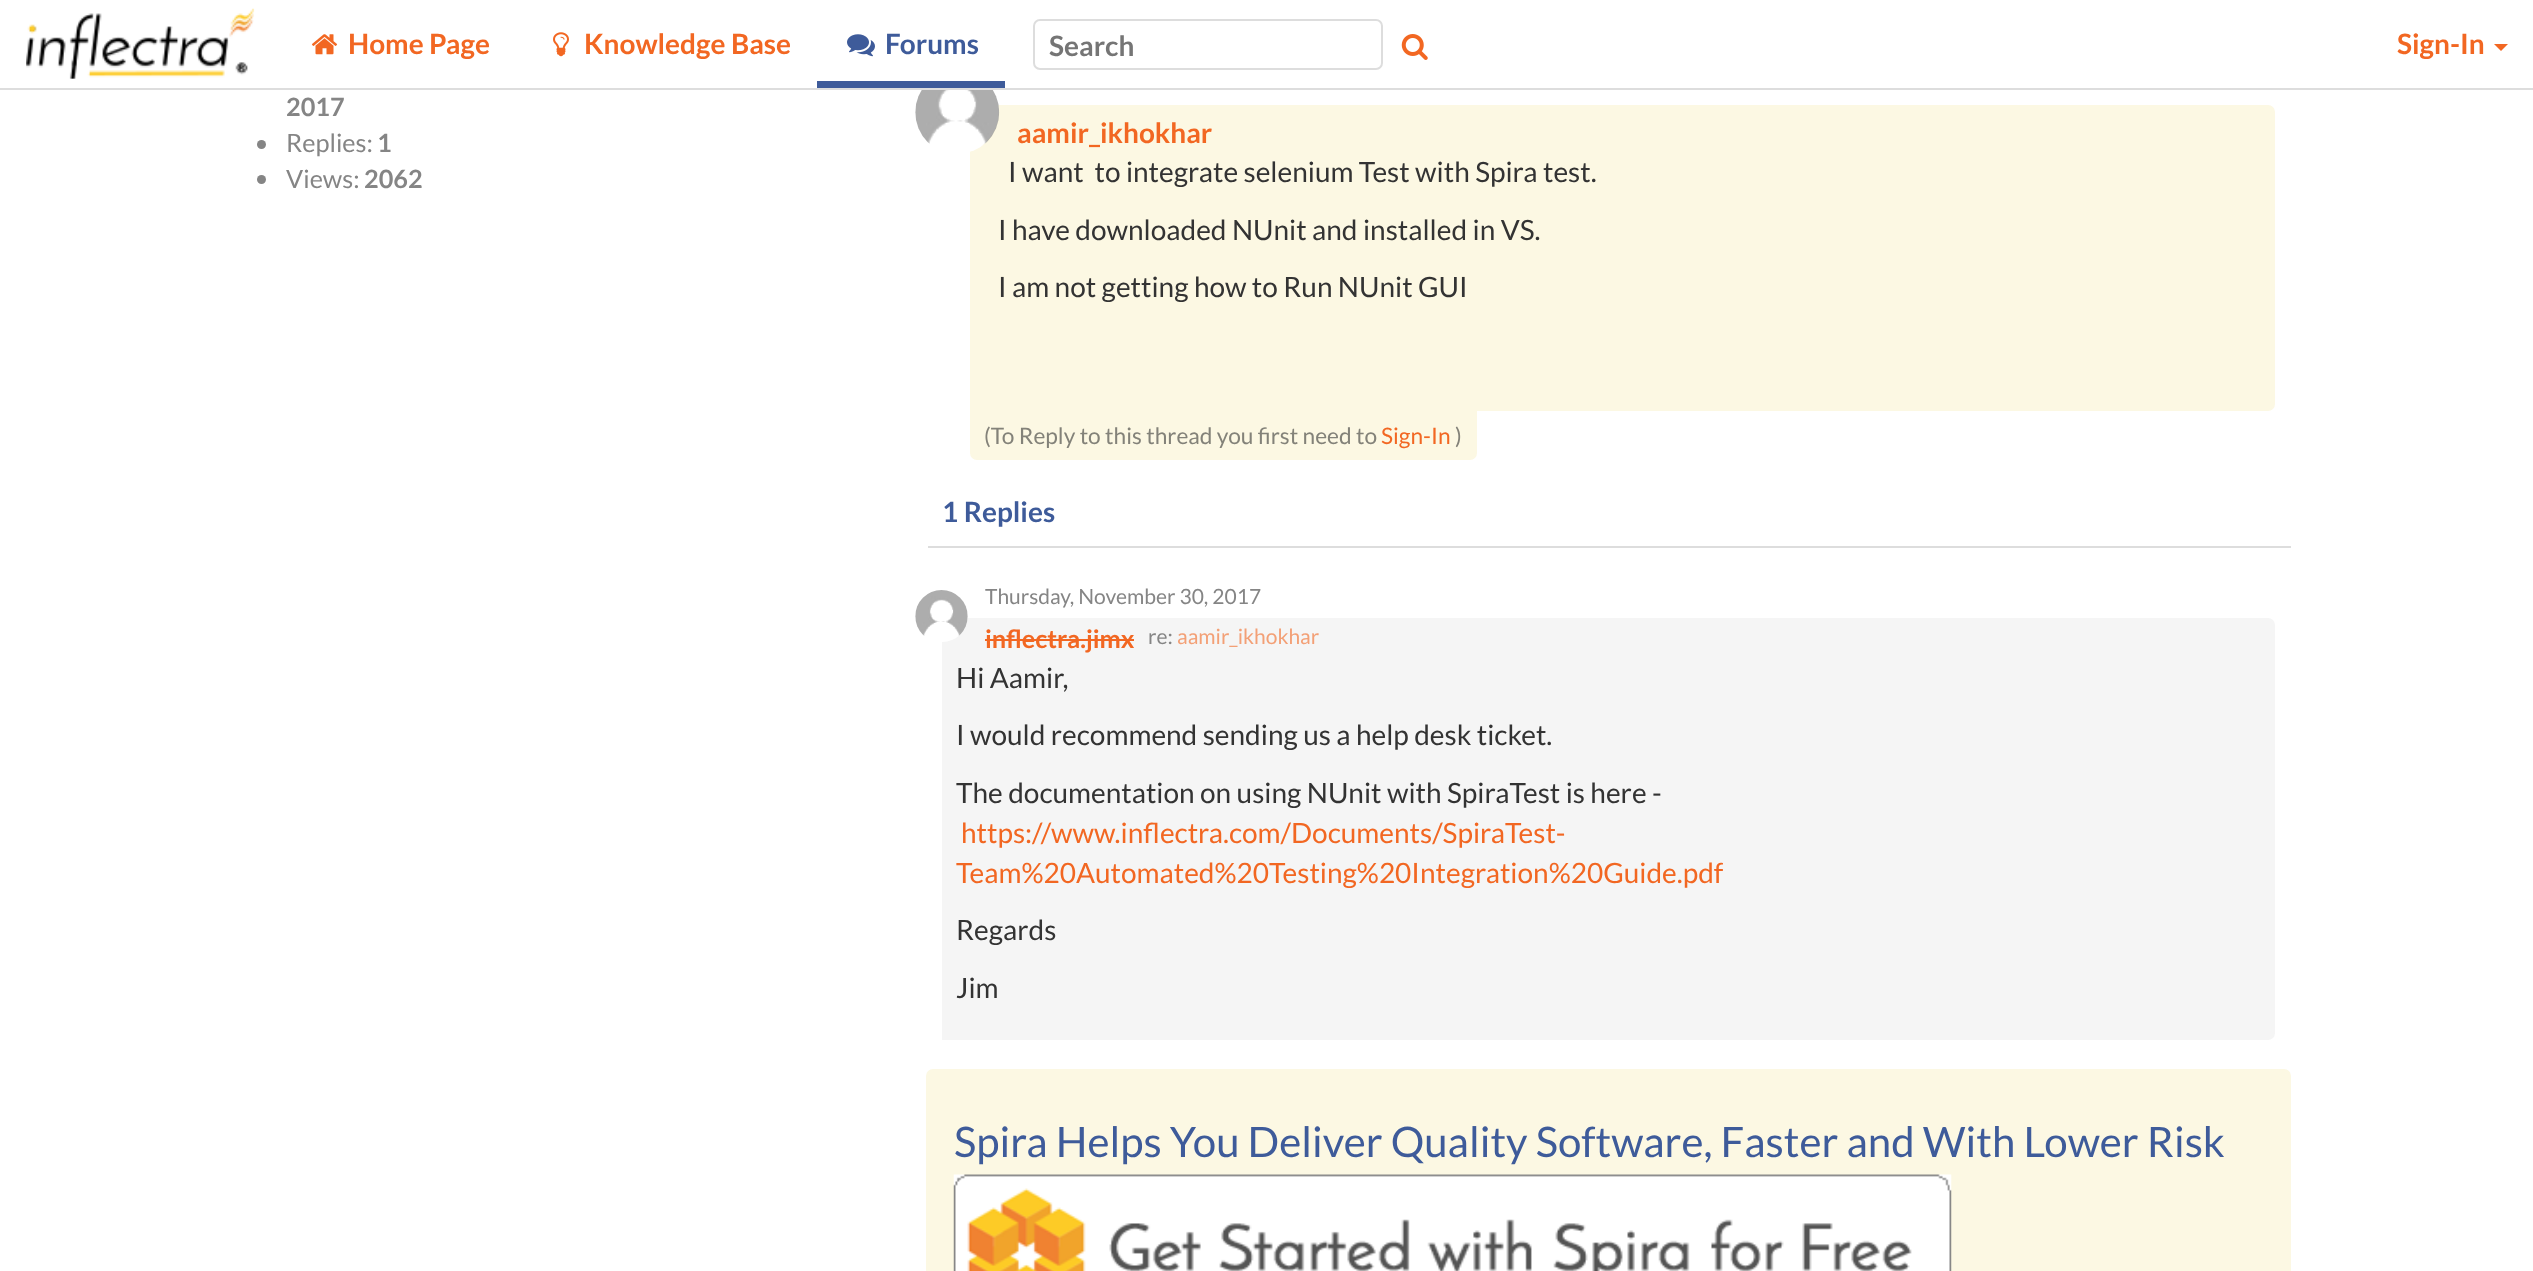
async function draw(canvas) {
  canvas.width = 2533;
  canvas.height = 1271;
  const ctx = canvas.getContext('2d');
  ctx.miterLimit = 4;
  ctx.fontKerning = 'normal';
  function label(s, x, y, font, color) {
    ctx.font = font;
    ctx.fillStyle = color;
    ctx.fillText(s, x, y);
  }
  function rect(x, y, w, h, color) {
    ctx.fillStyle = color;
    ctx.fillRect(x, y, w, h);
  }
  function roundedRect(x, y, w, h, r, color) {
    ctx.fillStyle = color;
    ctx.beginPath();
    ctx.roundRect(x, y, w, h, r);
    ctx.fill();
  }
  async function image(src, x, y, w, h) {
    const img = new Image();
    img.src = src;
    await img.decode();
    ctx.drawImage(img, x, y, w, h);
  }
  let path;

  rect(0, 0, 2533, 1271, '#fff');
  ctx.fillStyle = '#fcf8e3';
  ctx.beginPath();
  ctx.roundRect(970, 105, 1305, 306, [7, 7, 7, 0]);
  ctx.fill();
  ctx.fillStyle = '#fff';
  ctx.beginPath();
  ctx.arc(957, 112, 42, 0, 2 * Math.PI);
  ctx.fill();
  rect(0, 88, 2533, 2, '#ddd');
  await image('assets/img1.png', 26, 8, 229, 71);
  await image('assets/img2.png', 311, 34, 27, 21);
  label('Home Page', 348, 54, 'bold 28px Lato', '#f26722');
  await image('assets/img3.png', 553, 32, 16, 25);
  label('Knowledge Base', 584, 54, 'bold 28px Lato', '#f26722');
  rect(817, 81, 188, 7, '#3e5b9a');
  await image('assets/img4.png', 847, 34, 28, 23);
  label('Forums', 885, 54, 'bold 28px Lato', '#3e5b9a');
  ctx.beginPath();
  ctx.roundRect(1034, 20, 348, 49, 6);
  ctx.strokeStyle = '#ddd';
  ctx.lineWidth = 2;
  ctx.stroke();
  label('Search', 1049, 56, 'bold 28px Lato', '#757575');
  await image('assets/img5.png', 1401, 34, 27, 26);
  label('Sign-In', 2397, 54, 'bold 28px Lato', '#f26722');
  path = new Path2D('M2494 44H2508L2501 51Z');
  ctx.fill(path);
  label('2017', 286, 116, 'bold 25.25px Lato', '#858585');
  ctx.beginPath();
  ctx.arc(261.5, 144.5, 4.5, 0, 2 * Math.PI);
  ctx.fill();
  label('Replies:', 286, 152, '25.25px Lato', '#858585');
  label('1', 377, 152, 'bold 25.25px Lato', '#858585');
  ctx.beginPath();
  ctx.arc(261.5, 179.5, 4.5, 0, 2 * Math.PI);
  ctx.fill();
  label('Views:', 286, 188, '25.25px Lato', '#858585');
  label('2062', 364, 188, 'bold 25.25px Lato', '#858585');
  await image('assets/img6.png', 915, 90, 85, 61);
  label('aamir_ikhokhar', 1017, 143, 'bold 28px Lato', '#f26722');
  label('I want  to integrate selenium Test with Spira test.', 1008, 182, '28px Lato', '#333');
  label('I have downloaded NUnit and installed in VS.', 998, 240, '28px Lato', '#333');
  label('I am not getting how to Run NUnit GUI', 998, 297, '28px Lato', '#333');
  ctx.fillStyle = '#fcf8e3';
  ctx.beginPath();
  ctx.roundRect(970, 411, 507, 49, [0, 0, 7, 7]);
  ctx.fill();
  label('(To Reply to this thread you first need to', 984, 444, '22.7px Lato', '#838279');
  label('Sign-In', 1381, 444, '22.7px Lato', '#f26722');
  label(')', 1455, 444, '22.7px Lato', '#838279');
  rect(926, 546, 1365, 2, '#ddd');
  rect(926, 546, 2, 2, '#fff');
  label('1 Replies', 942, 522, 'bold 28px Lato', '#3e5b9a');
  ctx.fillStyle = '#f5f5f5';
  ctx.beginPath();
  ctx.roundRect(942, 618, 1333, 422, [7, 7, 7, 0]);
  ctx.fill();
  roundedRect(915, 590, 53, 52, 26, '#fff');
  await image('assets/img7.png', 915, 590, 53, 46);
  label('Thursday, November 30, 2017', 985, 604, '21px Lato', '#858585');
  label('inflectra.jimx', 985, 648, 'bold 25.25px Lato', '#f26722');
  rect(985, 639, 149, 2, '#f26722');
  label('re:', 1148, 644, '21px Lato', '#858585');
  label('aamir_ikhokhar', 1177, 644, '21px Lato', '#f3a076');
  label('Hi Aamir,', 956, 688, '28px Lato', '#333');
  label('I would recommend sending us a help desk ticket.', 956, 745, '28px Lato', '#333');
  label('The documentation on using NUnit with SpiraTest is here -', 956, 803, '28px Lato', '#333');
  label('https://www.inflectra.com/Documents/SpiraTest-', 961, 843, '28px Lato', '#f26722');
  label('Team%20Automated%20Testing%20Integration%20Guide.pdf', 956, 883, '28px Lato', '#f26722');
  label('Regards', 956, 940, '28px Lato', '#333');
  label('Jim', 956, 998, '28px Lato', '#333');
  roundedRect(926, 1069, 1365, 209, 7, '#fcf8e3');
  label('Spira Helps You Deliver Quality Software, Faster and With Lower Risk', 954, 1157, '42px Lato', '#3e5b9a');
  await image('assets/img8.png', 953, 1174, 999, 97);
}

draw(document.querySelector('canvas'));
